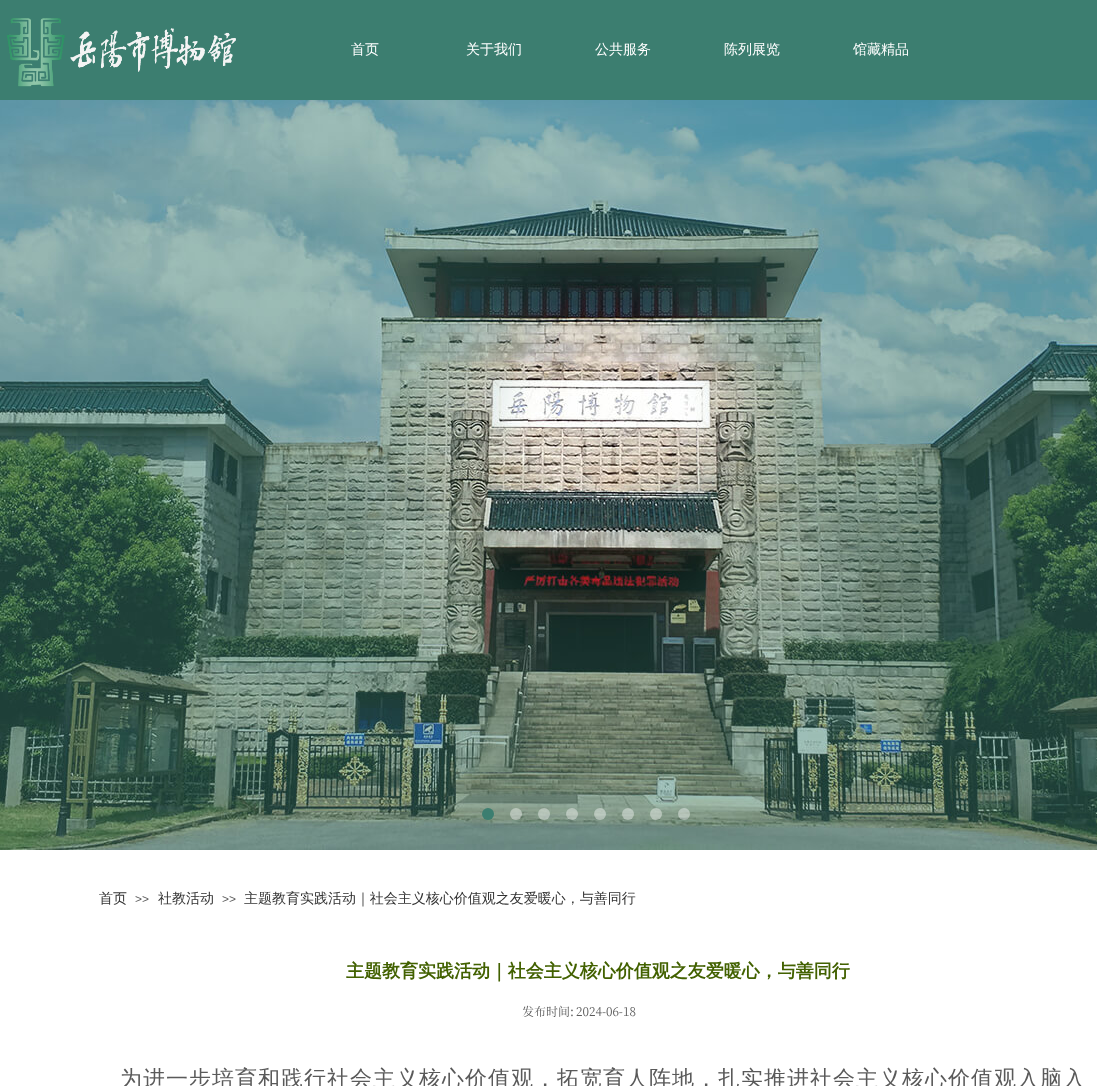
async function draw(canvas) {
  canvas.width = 1097;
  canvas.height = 1086;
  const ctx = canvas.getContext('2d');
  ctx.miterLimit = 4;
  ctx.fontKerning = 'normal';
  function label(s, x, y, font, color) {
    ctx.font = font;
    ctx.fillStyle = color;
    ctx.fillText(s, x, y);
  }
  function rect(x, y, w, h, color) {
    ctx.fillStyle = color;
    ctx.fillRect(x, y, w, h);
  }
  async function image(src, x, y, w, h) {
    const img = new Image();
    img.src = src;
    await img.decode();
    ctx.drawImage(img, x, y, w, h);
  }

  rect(0, 0, 1097, 1086, '#fff');
  rect(0, 0, 1097, 100, '#3c7e70');
  await image('assets/img1.png', 7, 18, 229, 69);
  label('首页', 351, 54, '500 14px WenQuanYi Zen Hei', '#fff');
  label('关于我们', 466, 54, '500 14px WenQuanYi Zen Hei', '#fff');
  label('公共服务', 595, 54, '500 14px WenQuanYi Zen Hei', '#fff');
  label('陈列展览', 724, 54, '500 14px WenQuanYi Zen Hei', '#fff');
  label('馆藏精品', 853, 54, '500 14px WenQuanYi Zen Hei', '#fff');
  await image('assets/img2.png', 0, 100, 1097, 750);
  ctx.fillStyle = '#3c7e70';
  ctx.beginPath();
  ctx.arc(488, 814, 6, 0, 2 * Math.PI);
  ctx.fill();
  ctx.fillStyle = '#ffffff66';
  ctx.beginPath();
  ctx.arc(516, 814, 6, 0, 2 * Math.PI);
  ctx.fill();
  ctx.beginPath();
  ctx.arc(544, 814, 6, 0, 2 * Math.PI);
  ctx.fill();
  ctx.beginPath();
  ctx.arc(572, 814, 6, 0, 2 * Math.PI);
  ctx.fill();
  ctx.beginPath();
  ctx.arc(600, 814, 6, 0, 2 * Math.PI);
  ctx.fill();
  ctx.beginPath();
  ctx.arc(628, 814, 6, 0, 2 * Math.PI);
  ctx.fill();
  ctx.beginPath();
  ctx.arc(656, 814, 6, 0, 2 * Math.PI);
  ctx.fill();
  ctx.beginPath();
  ctx.arc(684, 814, 6, 0, 2 * Math.PI);
  ctx.fill();
  label('首页', 99, 903, '500 14px WenQuanYi Zen Hei', '#333');
  label('>>', 135, 903, '12px Liberation Sans', '#5a5a5a');
  label('社教活动', 158, 903, '500 14px WenQuanYi Zen Hei', '#333');
  label('>>', 222, 903, '12px Liberation Sans', '#5a5a5a');
  label('主题教育实践活动｜社会主义核心价值观之友爱暖心，与善同行', 244, 903, '500 14px WenQuanYi Zen Hei', '#333');
  label('主题教育实践活动｜社会主义核心价值观之友爱暖心，与善同行', 346, 977, 'bold 18px WenQuanYi Zen Hei', '#426100');
  label('发布时间:', 522, 1016, '12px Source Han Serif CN', '#5a5a5a');
  label('2024-06-18', 576, 1016, '12px Source Han Serif CN', '#5a5a5a');
  ctx.letterSpacing = '1px';
  label('为进一步培育和践行社会主义核心价值观，拓宽育人阵地，扎实推进社会主义核心价值观入脑入', 120, 1086, '500 22px WenQuanYi Zen Hei', '#5a5a5a');
}

draw(document.querySelector('canvas'));
